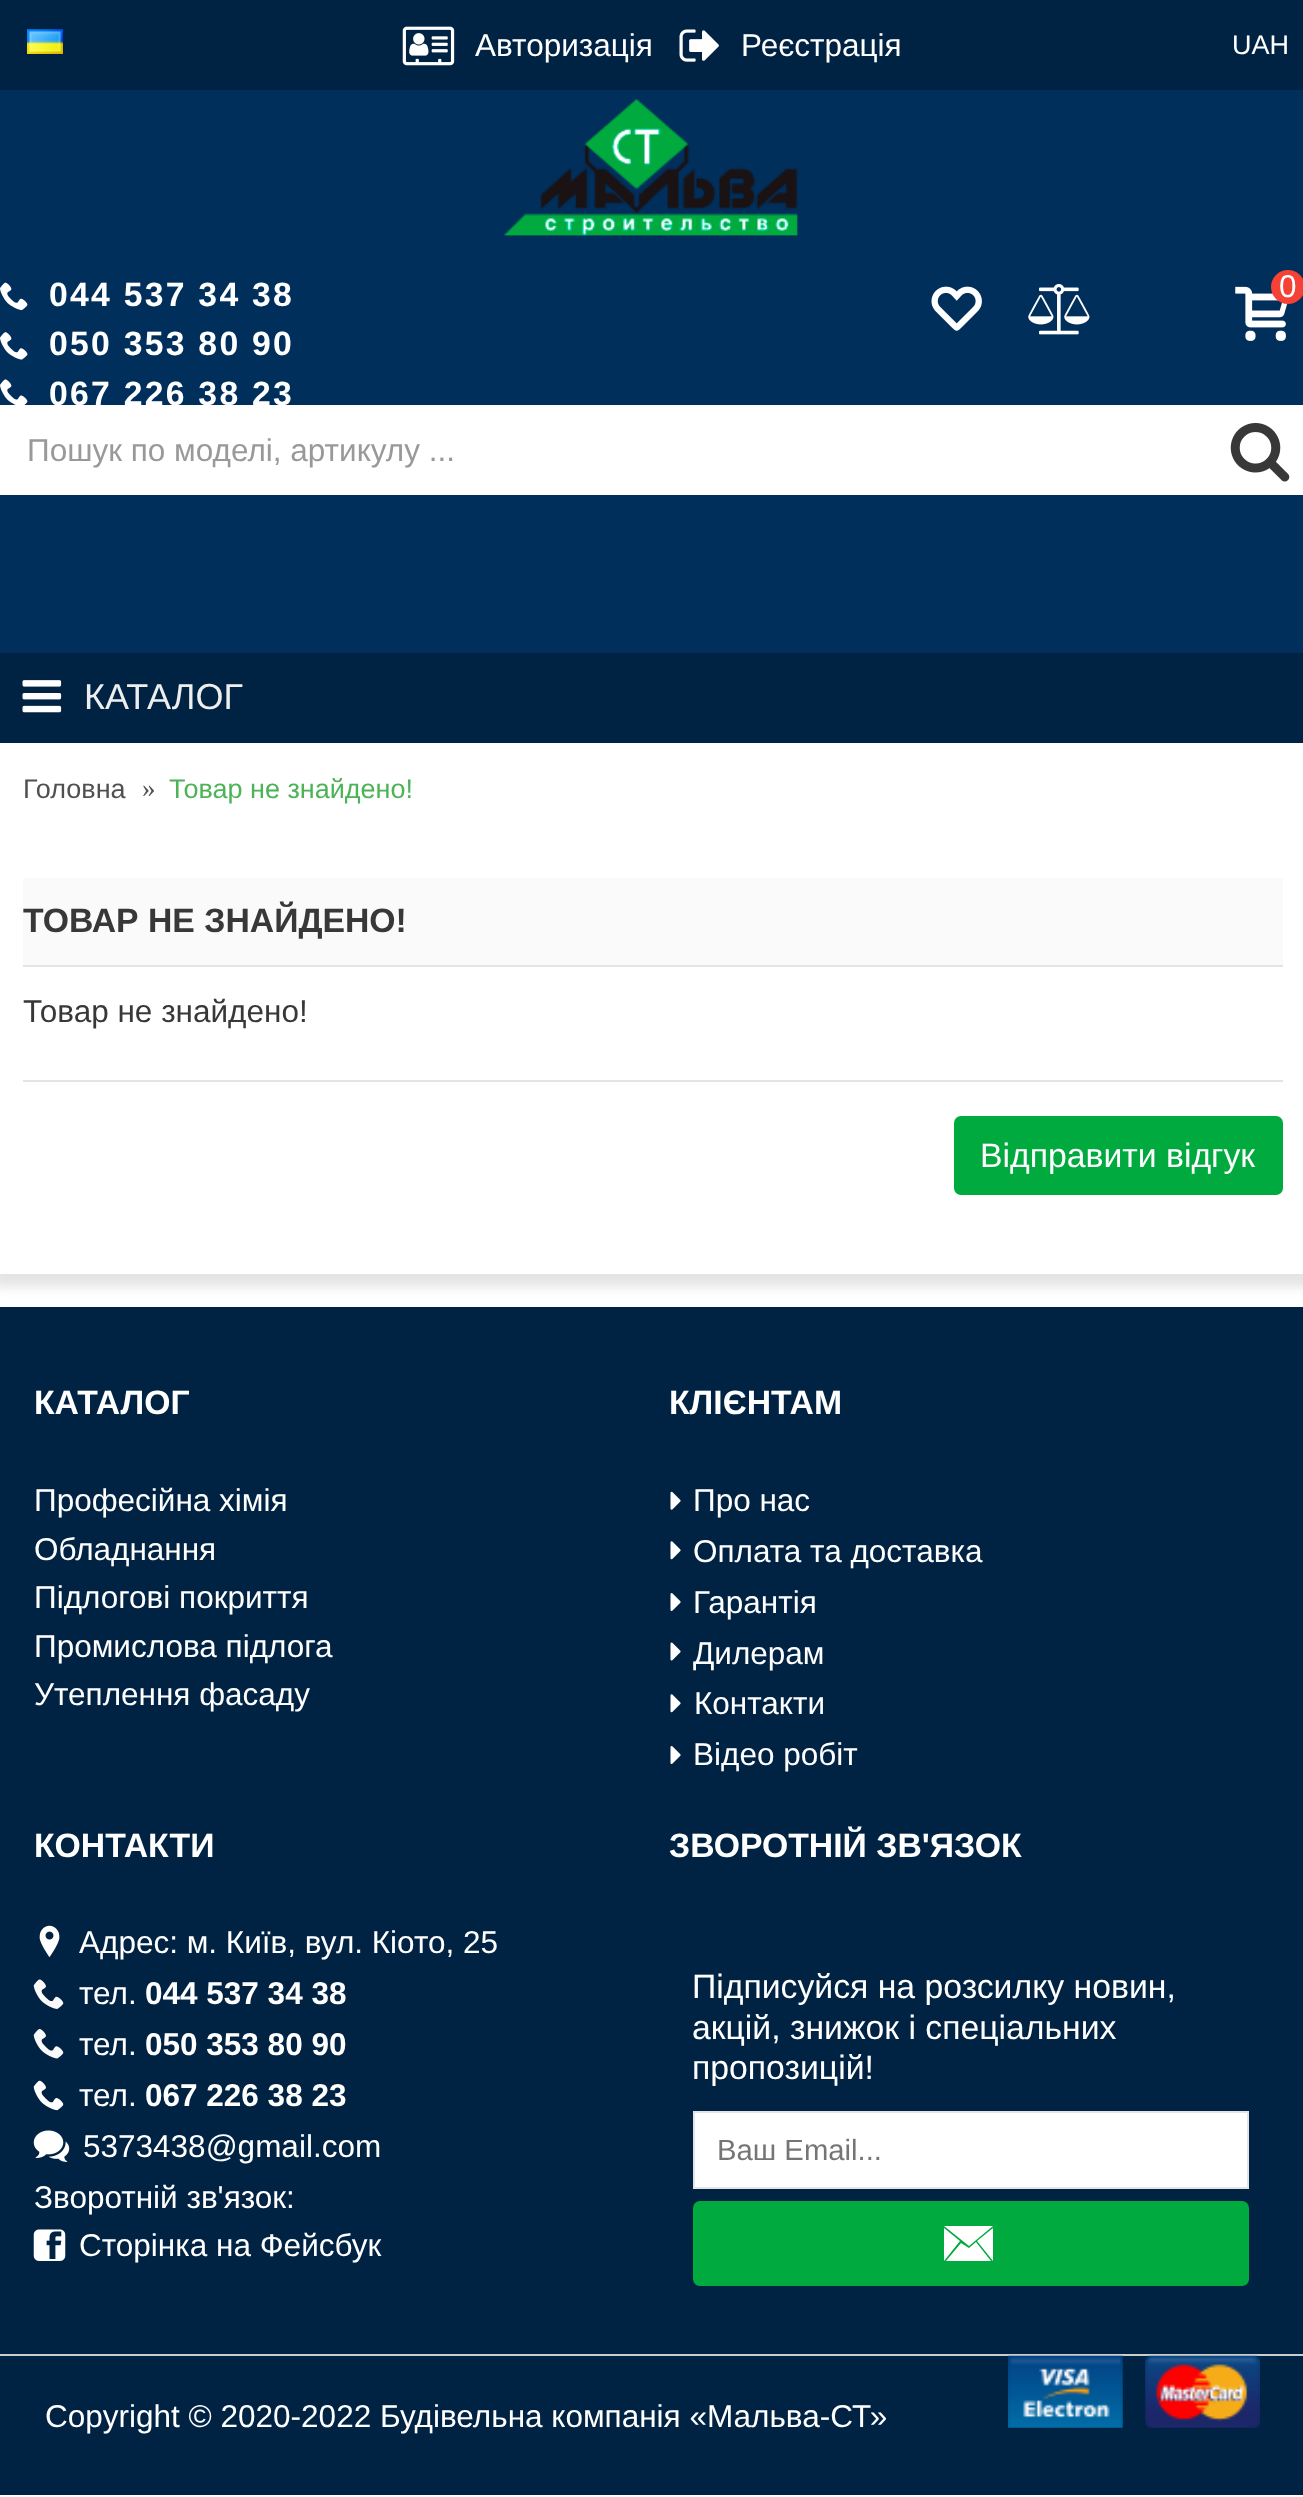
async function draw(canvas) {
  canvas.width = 1303;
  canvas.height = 2497;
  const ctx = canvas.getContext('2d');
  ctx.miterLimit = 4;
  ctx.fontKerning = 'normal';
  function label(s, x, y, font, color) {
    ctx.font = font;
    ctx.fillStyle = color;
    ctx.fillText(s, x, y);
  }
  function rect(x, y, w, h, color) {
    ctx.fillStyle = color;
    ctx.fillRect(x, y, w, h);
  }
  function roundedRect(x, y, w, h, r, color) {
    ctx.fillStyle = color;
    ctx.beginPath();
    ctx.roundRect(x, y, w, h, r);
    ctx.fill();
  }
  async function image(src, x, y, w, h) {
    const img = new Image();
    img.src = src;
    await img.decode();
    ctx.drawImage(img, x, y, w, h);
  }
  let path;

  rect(0, 0, 1303, 2497, '#fff');
  rect(0, 90, 1303, 563, '#002f5b');
  rect(0, 0, 1303, 90, '#002343');
  await image('assets/img1.png', 27, 29, 36, 25);
  await image('assets/img2.png', 402, 26, 53, 40);
  label('Авторизація', 475, 56, '31.5px Liberation Sans', '#fff');
  await image('assets/img3.png', 679, 29, 40, 33);
  label('Реєстрація', 741, 56, '31.5px Liberation Sans', '#fff');
  label('UAH', 1232, 54, '27px Liberation Sans', '#fff');
  await image('assets/img4.png', 504, 99, 294, 137);
  await image('assets/img5.png', 0, 282, 28, 29);
  ctx.letterSpacing = '2.25px';
  label('044 537 34 38', 49, 306, 'bold 33.75px Liberation Sans', '#fff');
  await image('assets/img6.png', 0, 332, 28, 28);
  label('050 353 80 90', 49, 355, 'bold 33.75px Liberation Sans', '#fff');
  await image('assets/img7.png', 0, 379, 28, 26);
  label('067 226 38 23', 49, 405, 'bold 33.75px Liberation Sans', '#fff');
  await image('assets/img8.png', 931, 286, 51, 45);
  await image('assets/img9.png', 1028, 284, 62, 51);
  await image('assets/img10.png', 1235, 286, 53, 55);
  ctx.fillStyle = '#f44336';
  ctx.beginPath();
  ctx.arc(1288, 287, 17, 0, 2 * Math.PI);
  ctx.fill();
  ctx.letterSpacing = '0px';
  label('0', 1279, 297, '31.5px Liberation Sans', '#fff');
  rect(0, 405, 1303, 90, '#fff');
  label('Пошук по моделі, артикулу ...', 27, 461, '31.5px Liberation Sans', '#999');
  await image('assets/img11.png', 1230, 423, 60, 59);
  ctx.fillStyle = '#e4e4e4';
  ctx.filter = 'blur(5.5px)';
  ctx.beginPath();
  ctx.rect(-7, 738, 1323, 549);
  ctx.fill();
  ctx.filter = 'none';
  rect(0, 653, 1303, 90, '#002343');
  await image('assets/img12.png', 22, 680, 40, 33);
  label('КАТАЛОГ', 84, 709, '36px Liberation Sans', '#eee');
  rect(0, 743, 1303, 531, '#fff');
  label('Головна', 23, 798, '27px Liberation Sans', '#505050');
  label('»', 142, 797, '27px Liberation Serif', '#505050');
  label('Товар не знайдено!', 169, 798, '27px Liberation Sans', '#4cb356');
  rect(23, 878, 1260, 87, '#fafafa');
  rect(23, 965, 1260, 2, '#e4e4e4');
  ctx.save();
  ctx.beginPath();
  ctx.rect(23, 878, 1260, 87);
  ctx.clip();
  label('ТОВАР НЕ ЗНАЙДЕНО!', 23, 932, 'bold 33.75px Liberation Sans', '#383838');
  ctx.restore();
  label('Товар не знайдено!', 23, 1022, '31.5px Liberation Sans', '#383838');
  rect(23, 1080, 1260, 2, '#e4e4e4');
  roundedRect(954, 1116, 329, 79, 7, '#00aa3f');
  label('Відправити відгук', 980, 1167, '33.75px Liberation Sans', '#fff');
  rect(0, 1307, 1303, 1188, '#002343');
  label('КАТАЛОГ', 34, 1414, 'bold 33.75px Liberation Sans', '#fff');
  label('Професiйна хiмiя', 34, 1511, '31.5px Liberation Sans', '#fff');
  label('Обладнання', 34, 1560, '31.5px Liberation Sans', '#fff');
  label('Пiдлоговi покриття', 34, 1608, '31.5px Liberation Sans', '#fff');
  label('Промислова пiдлога', 34, 1657, '31.5px Liberation Sans', '#fff');
  label('Утеплення фасаду', 34, 1705, '31.5px Liberation Sans', '#fff');
  label('КЛІЄНТАМ', 669, 1414, 'bold 33.75px Liberation Sans', '#fff');
  await image('assets/img13.png', 670, 1491, 11, 19);
  label('Про нас', 693, 1511, '31.5px Liberation Sans', '#fff');
  await image('assets/img14.png', 670, 1541, 11, 19);
  label('Оплата та доставка', 693, 1562, '31.5px Liberation Sans', '#fff');
  await image('assets/img15.png', 670, 1593, 11, 18);
  label('Гарантія', 693, 1613, '31.5px Liberation Sans', '#fff');
  await image('assets/img16.png', 670, 1642, 11, 19);
  label('Дилерам', 693, 1664, '31.5px Liberation Sans', '#fff');
  await image('assets/img17.png', 670, 1694, 11, 19);
  label('Контакти', 694, 1714, '31.5px Liberation Sans', '#fff');
  await image('assets/img15.png', 670, 1746, 11, 18);
  label('Відео робіт', 693, 1765, '31.5px Liberation Sans', '#fff');
  label('КОНТАКТИ', 34, 1857, 'bold 33.75px Liberation Sans', '#fff');
  await image('assets/img18.png', 39, 1925, 21, 33);
  label('Адрес: м. Київ, вул. Кiото, 25', 79, 1953, '31.5px Liberation Sans', '#fff');
  await image('assets/img19.png', 33, 1979, 31, 30);
  label('тел.', 79, 2004, '31.5px Liberation Sans', '#fff');
  label('044 537 34 38', 145, 2004, 'bold 31.5px Liberation Sans', '#fff');
  await image('assets/img20.png', 33, 2029, 31, 30);
  label('тел.', 79, 2055, '31.5px Liberation Sans', '#fff');
  label('050 353 80 90', 145, 2055, 'bold 31.5px Liberation Sans', '#fff');
  await image('assets/img21.png', 33, 2080, 31, 31);
  label('тел.', 79, 2106, '31.5px Liberation Sans', '#fff');
  label('067 226 38 23', 145, 2106, 'bold 31.5px Liberation Sans', '#fff');
  await image('assets/img22.png', 33, 2130, 37, 32);
  label('5373438@gmail.com', 83, 2157, '31.5px Liberation Sans', '#fff');
  label('Зворотній зв\'язок:', 34, 2208, '31.5px Liberation Sans', '#fff');
  await image('assets/img23.png', 33, 2229, 33, 32);
  label('Сторінка на Фейсбук', 79, 2256, '31.5px Liberation Sans', '#fff');
  label('ЗВОРОТНIЙ ЗВ\'ЯЗОК', 669, 1857, 'bold 33.75px Liberation Sans', '#fff');
  label('Підписуйся на розсилку новин,', 692, 1998, '33.75px Liberation Sans', '#fff');
  label('акцій, знижок і спеціальних', 692, 2039, '33.75px Liberation Sans', '#fff');
  label('пропозицій!', 692, 2079, '33.75px Liberation Sans', '#fff');
  ctx.beginPath();
  ctx.rect(694, 2112, 554, 76);
  ctx.fill();
  ctx.strokeStyle = '#e4e4e4';
  ctx.lineWidth = 2;
  ctx.stroke();
  label('Ваш Email...', 717, 2160, '29.25px Liberation Sans', '#757575');
  roundedRect(693, 2201, 556, 85, 7, '#00aa3f');
  ctx.fillStyle = '#fff';
  path = new Path2D('M969 2248L961 2243L946 2261H991L976 2242ZM993 2226H944L969 2246ZM977 2241L993 2261V2228ZM944 2228V2261L960 2241Z');
  ctx.fill(path);
  rect(0, 2354, 1303, 2, '#ccc');
  label('Copyright © 2020-2022 Будівельна компанія «Мальва-СТ»', 45, 2427, '31.5px Liberation Sans', '#fff');
  await image('assets/img24.png', 1008, 2355, 115, 73);
  await image('assets/img25.png', 1145, 2355, 115, 73);
}

draw(document.querySelector('canvas'));
